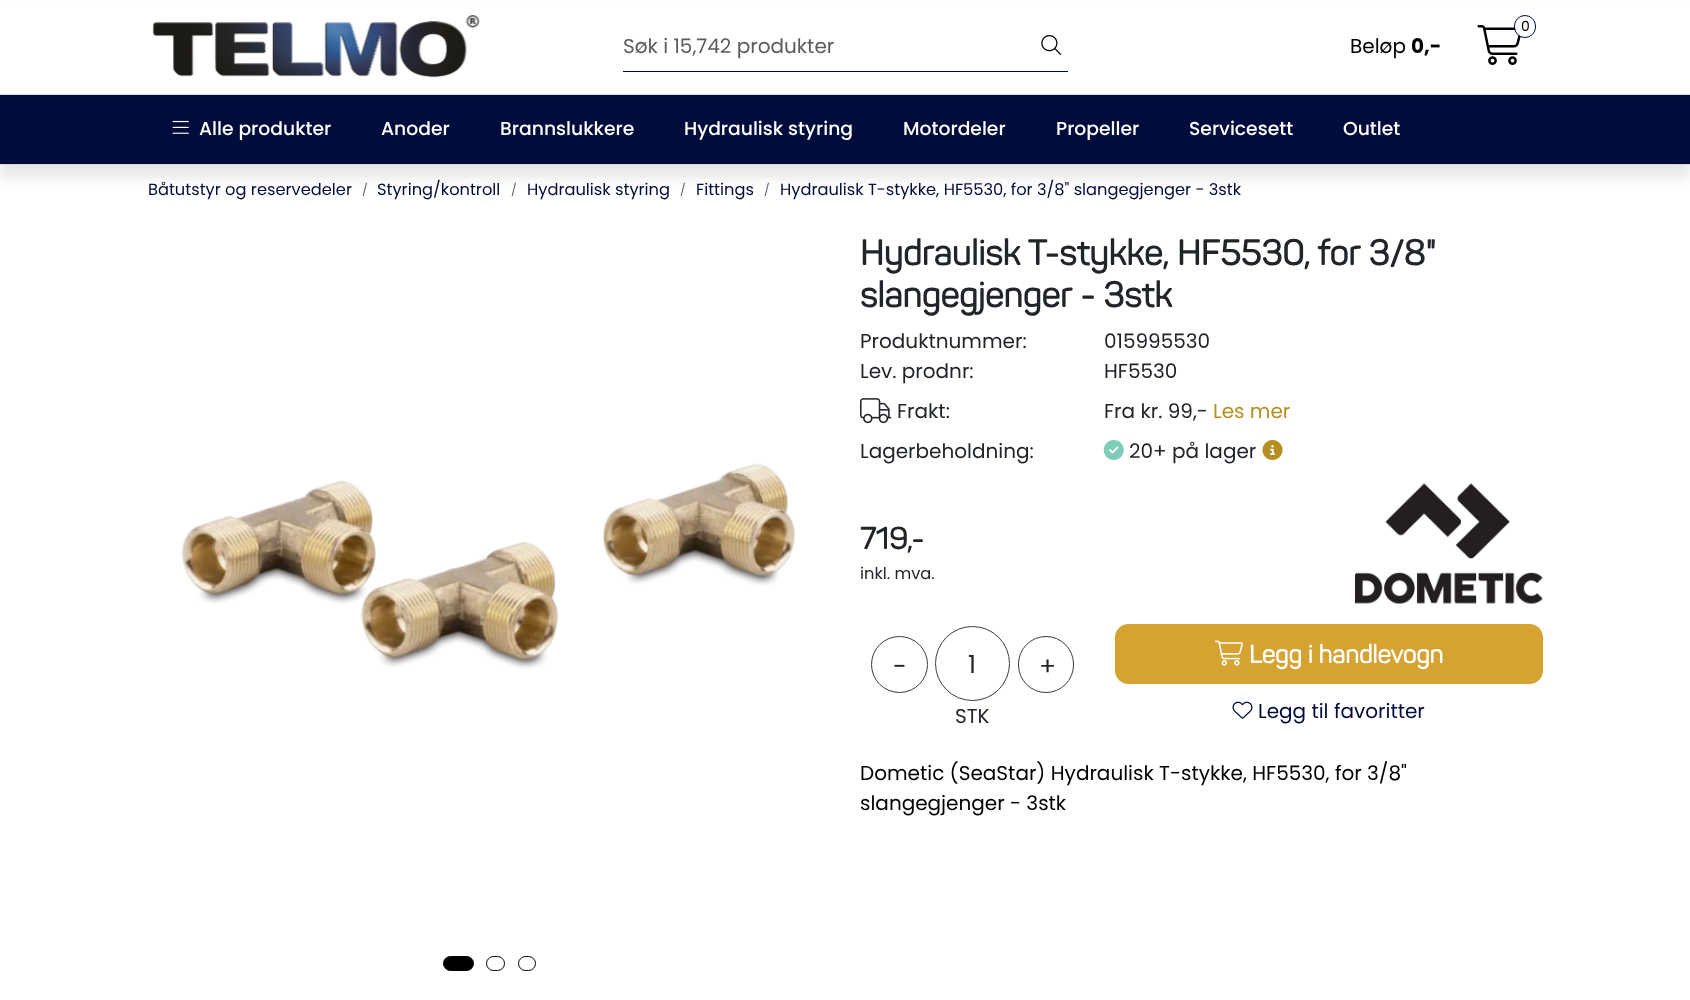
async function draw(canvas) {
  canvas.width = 1690;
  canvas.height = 1000;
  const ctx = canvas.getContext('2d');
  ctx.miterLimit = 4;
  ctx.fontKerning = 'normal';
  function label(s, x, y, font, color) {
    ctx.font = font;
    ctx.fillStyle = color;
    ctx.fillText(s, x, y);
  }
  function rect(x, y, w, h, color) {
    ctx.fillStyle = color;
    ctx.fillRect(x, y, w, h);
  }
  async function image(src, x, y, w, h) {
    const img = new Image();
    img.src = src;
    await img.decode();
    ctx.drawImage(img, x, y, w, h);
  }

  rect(0, 0, 1690, 1000, '#fff');
  ctx.fillStyle = '#1111111a';
  ctx.filter = 'blur(6px)';
  ctx.beginPath();
  ctx.rect(0, 13, 1690, 165);
  ctx.fill();
  ctx.filter = 'none';
  rect(0, 6, 1690, 88, '#fff');
  await image('assets/img1.png', 152, 15, 328, 63);
  rect(623, 71, 413, 1, '#000c3c');
  label('Søk i 15,742 produkter', 623, 53, '20px Poppins', '#595c5f');
  rect(1035, 71, 1, 1, '#fff');
  rect(1035, 71, 33, 1, '#000c3c');
  await image('assets/img2.png', 1041, 35, 21, 20);
  await image('assets/img3.png', 1477, 25, 44, 40);
  ctx.fillStyle = '#fff';
  ctx.beginPath();
  ctx.roundRect(1514.5, 15.5, 21, 22, 10.5);
  ctx.fill();
  ctx.strokeStyle = '#000c3c';
  ctx.stroke();
  label('0', 1521, 31, '14px Poppins', '#000');
  label('Beløp', 1350, 53, '20px Poppins', '#000');
  label('0,-', 1411, 53, 'bold 20px Poppins', '#000');
  rect(0, 95, 1690, 69, '#000c3c');
  rect(0, 94, 1690, 1, '#d6d8dd');
  rect(0, 164, 1690, 1, '#d6d8dd');
  await image('assets/img4.png', 172, 120, 17, 14);
  label('Alle produkter', 199, 135, '500 18.75px Poppins', '#fff');
  label('Anoder', 381, 135, '500 18.75px Poppins', '#fff');
  label('Brannslukkere', 500, 135, '500 18.75px Poppins', '#fff');
  label('Hydraulisk styring', 684, 135, '500 18.75px Poppins', '#fff');
  label('Motordeler', 903, 135, '500 18.75px Poppins', '#fff');
  label('Propeller', 1056, 135, '500 18.75px Poppins', '#fff');
  label('Servicesett', 1189, 135, '500 18.75px Poppins', '#fff');
  label('Outlet', 1343, 135, '500 18.75px Poppins', '#fff');
  label('Båtutstyr og reservedeler', 148, 195, '16.25px Poppins', '#000c3c');
  label('/', 362, 194, '12px Poppins', '#595c5f');
  label('Styring/kontroll', 377, 195, '16.25px Poppins', '#000c3c');
  label('/', 511, 194, '12px Poppins', '#595c5f');
  label('Hydraulisk styring', 527, 195, '16.25px Poppins', '#000c3c');
  label('/', 680, 194, '12px Poppins', '#595c5f');
  label('Fittings', 696, 195, '16.25px Poppins', '#000c3c');
  label('/', 764, 194, '12px Poppins', '#595c5f');
  label('Hydraulisk T-stykke, HF5530, for 3/8" slangegjenger - 3stk', 780, 195, '16.25px Poppins', '#000c3c');
  await image('assets/img5.png', 181, 463, 615, 206);
  ctx.fillStyle = '#000';
  ctx.beginPath();
  ctx.roundRect(443.5, 956.5, 30, 14, 7);
  ctx.fill();
  ctx.strokeStyle = '#000';
  ctx.stroke();
  ctx.beginPath();
  ctx.roundRect(486.5, 956.5, 18, 14, 7);
  ctx.stroke();
  ctx.beginPath();
  ctx.roundRect(518.5, 956.5, 17, 14, 7);
  ctx.stroke();
  label('Hydraulisk T-stykke, HF5530, for 3/8"', 860, 265, 'bold 35px "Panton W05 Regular"', '#212529');
  label('slangegjenger - 3stk', 860, 307, 'bold 35px "Panton W05 Regular"', '#212529');
  label('Produktnummer:', 860, 348, '20px Poppins', '#212529');
  label('015995530', 1104, 348, '20px Poppins', '#212529');
  label('Lev. prodnr:', 860, 378, '20px Poppins', '#212529');
  label('HF5530', 1104, 378, '20px Poppins', '#212529');
  await image('assets/img6.png', 860, 398, 32, 26);
  label('Frakt:', 897, 418, '20px Poppins', '#212529');
  label('Fra kr. 99,-', 1104, 418, '20px Poppins', '#212529');
  label('Les mer', 1213, 418, '20px Poppins', '#b58f1f');
  label('Lagerbeholdning:', 860, 458, '20px Poppins', '#212529');
  await image('assets/img7.png', 1103, 440, 21, 20);
  label('20+ på lager', 1129, 458, '20px Poppins', '#212529');
  await image('assets/img8.png', 1262, 440, 21, 20);
  label('719,-', 860, 549, 'bold 30px "Panton W05 Regular"', '#212529');
  label('inkl. mva.', 860, 579, '16.25px Poppins', '#212529');
  await image('assets/img9.png', 1355, 483, 188, 121);
  ctx.beginPath();
  ctx.arc(899.5, 664.5, 28, 0, 2 * Math.PI);
  ctx.strokeStyle = '#3b3c3d';
  ctx.stroke();
  label('-', 893, 675, '25px Poppins', '#212529');
  ctx.beginPath();
  ctx.arc(972.5, 663.5, 37, 0, 2 * Math.PI);
  ctx.stroke();
  label('1', 968, 673, '25px Poppins', '#212529');
  ctx.beginPath();
  ctx.roundRect(1018.5, 636.5, 55, 56, 27.5);
  ctx.stroke();
  label('+', 1039, 675, '25px Poppins', '#212529');
  label('STK', 955, 723, '20px Poppins', '#212529');
  ctx.fillStyle = '#d6a333';
  ctx.beginPath();
  ctx.roundRect(1115.5, 624.5, 427, 59, 12.5);
  ctx.fill();
  ctx.strokeStyle = '#d6a333';
  ctx.stroke();
  await image('assets/img10.png', 1215, 640, 28, 26);
  label('Legg i handlevogn', 1249, 663, 'bold 25px "Panton W05 Regular"', '#fff');
  await image('assets/img11.png', 1232, 701, 21, 18);
  label('Legg til favoritter', 1258, 718, '20px Poppins', '#000c3c');
  label('Dometic (SeaStar) Hydraulisk T-stykke, HF5530, for 3/8"', 860, 780, '20px Poppins', '#000');
  label('slangegjenger - 3stk', 860, 810, '20px Poppins', '#000');
}

draw(document.querySelector('canvas'));
